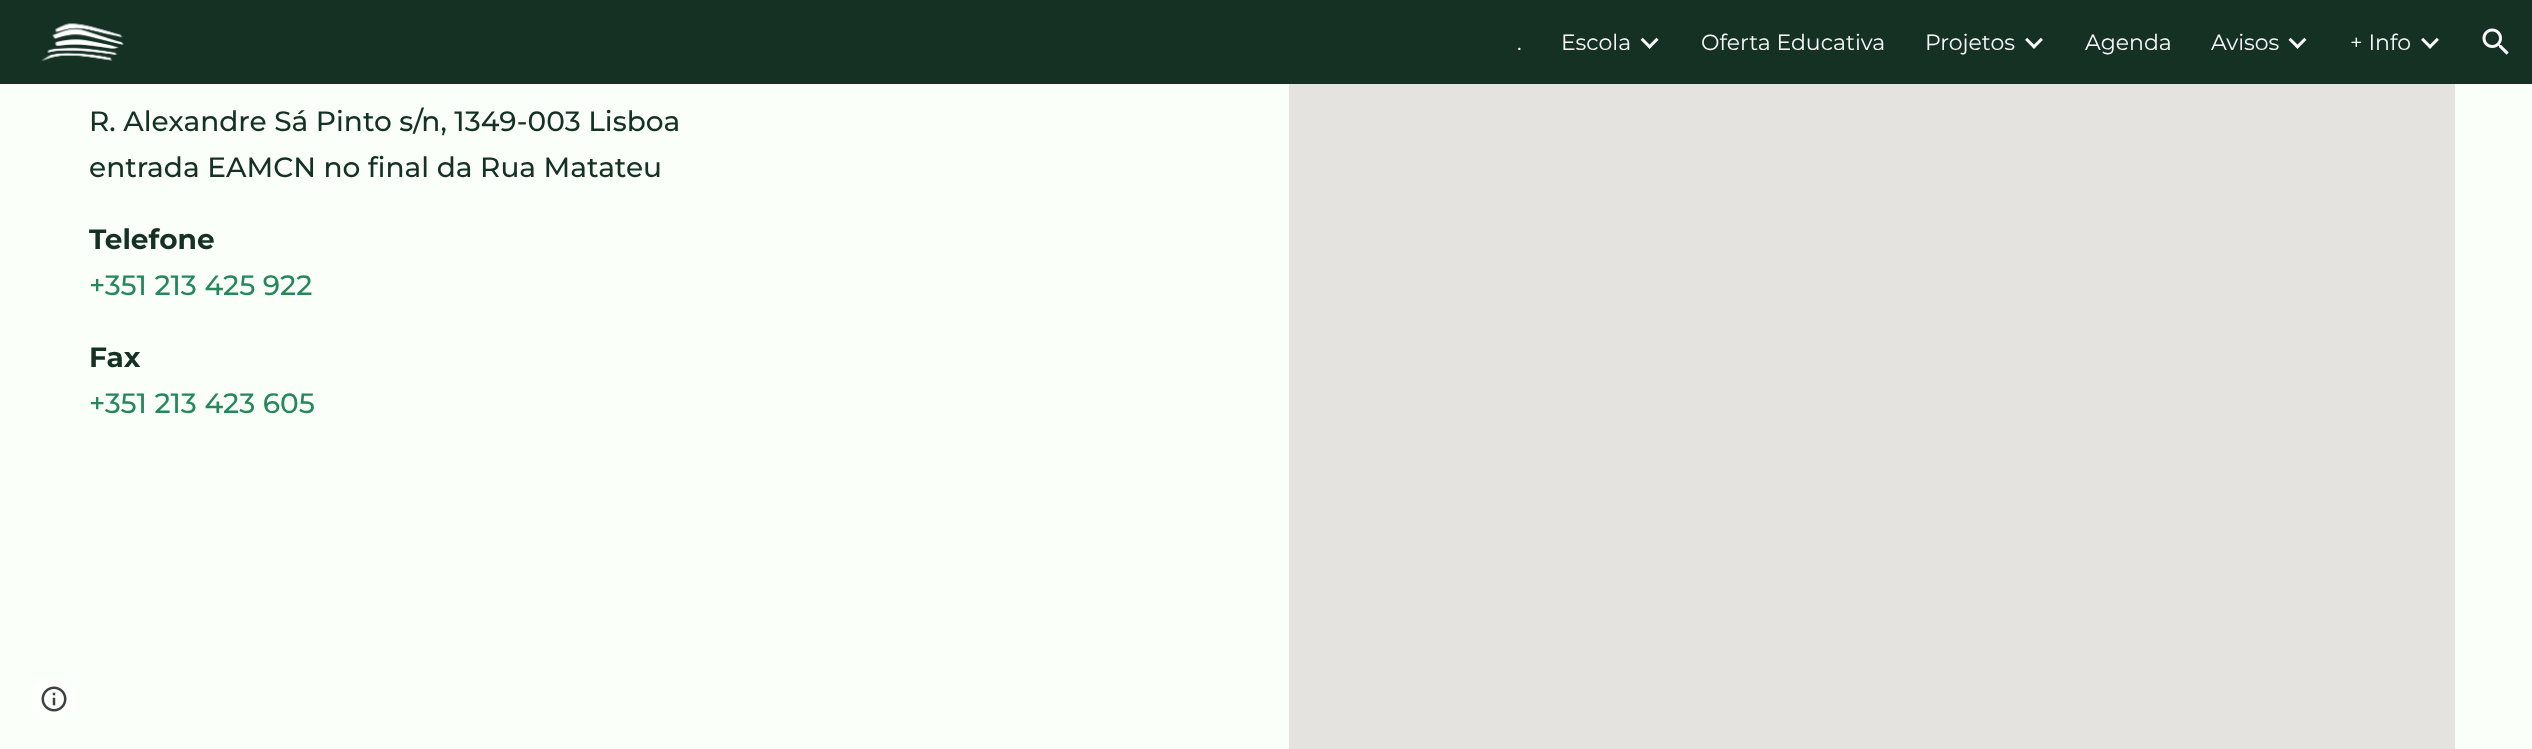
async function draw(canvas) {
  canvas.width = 2532;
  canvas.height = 749;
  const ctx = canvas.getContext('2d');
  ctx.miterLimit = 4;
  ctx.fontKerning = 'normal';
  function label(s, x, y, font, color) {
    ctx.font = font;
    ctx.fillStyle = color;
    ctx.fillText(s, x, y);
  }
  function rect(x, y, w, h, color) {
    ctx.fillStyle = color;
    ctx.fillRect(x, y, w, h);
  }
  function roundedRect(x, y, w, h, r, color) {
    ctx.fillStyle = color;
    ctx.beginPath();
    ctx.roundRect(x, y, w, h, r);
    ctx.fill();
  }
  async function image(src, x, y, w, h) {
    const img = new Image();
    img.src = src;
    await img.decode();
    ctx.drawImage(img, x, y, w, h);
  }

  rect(0, 0, 2532, 749, '#fafffa');
  rect(0, 0, 2532, 84, '#153124');
  await image('assets/img1.png', 41, 23, 83, 38);
  label('.', 1517, 50, '22px Montserrat', '#f9f9f9');
  label('Escola', 1561, 50, '22px Montserrat', '#f9f9f9');
  await image('assets/img2.png', 1640, 37, 19, 12);
  label('Oferta Educativa', 1701, 50, '22px Montserrat', '#f9f9f9');
  label('Projetos', 1925, 50, '22px Montserrat', '#f9f9f9');
  await image('assets/img3.png', 2025, 37, 18, 12);
  label('Agenda', 2085, 50, '22px Montserrat', '#f9f9f9');
  label('Avisos', 2211, 50, '22px Montserrat', '#f9f9f9');
  await image('assets/img4.png', 2288, 37, 19, 12);
  label('+ Info', 2350, 50, '22px Montserrat', '#f9f9f9');
  await image('assets/img5.png', 2421, 37, 18, 12);
  await image('assets/img6.png', 2482, 28, 27, 27);
  label('R. Alexandre Sá Pinto s/n, 1349-003 Lisboa', 89, 131, '500 28px Montserrat', '#153124');
  label('entrada EAMCN no final da Rua Matateu', 89, 177, '500 28px Montserrat', '#153124');
  label('Telefone', 89, 249, 'bold 28px Montserrat', '#153124');
  label('+351 213 425 922', 89, 295, '500 28px Montserrat', '#25885b');
  label('Fax', 89, 367, 'bold 28px Montserrat', '#153124');
  label('+351 213 423 605', 89, 413, '500 28px Montserrat', '#25885b');
  rect(1289, 84, 1166, 665, '#e5e3df');
  roundedRect(33, 678, 42, 42, 15, '#fdfffd');
  await image('assets/img7.png', 41, 686, 26, 26);
}

draw(document.querySelector('canvas'));
